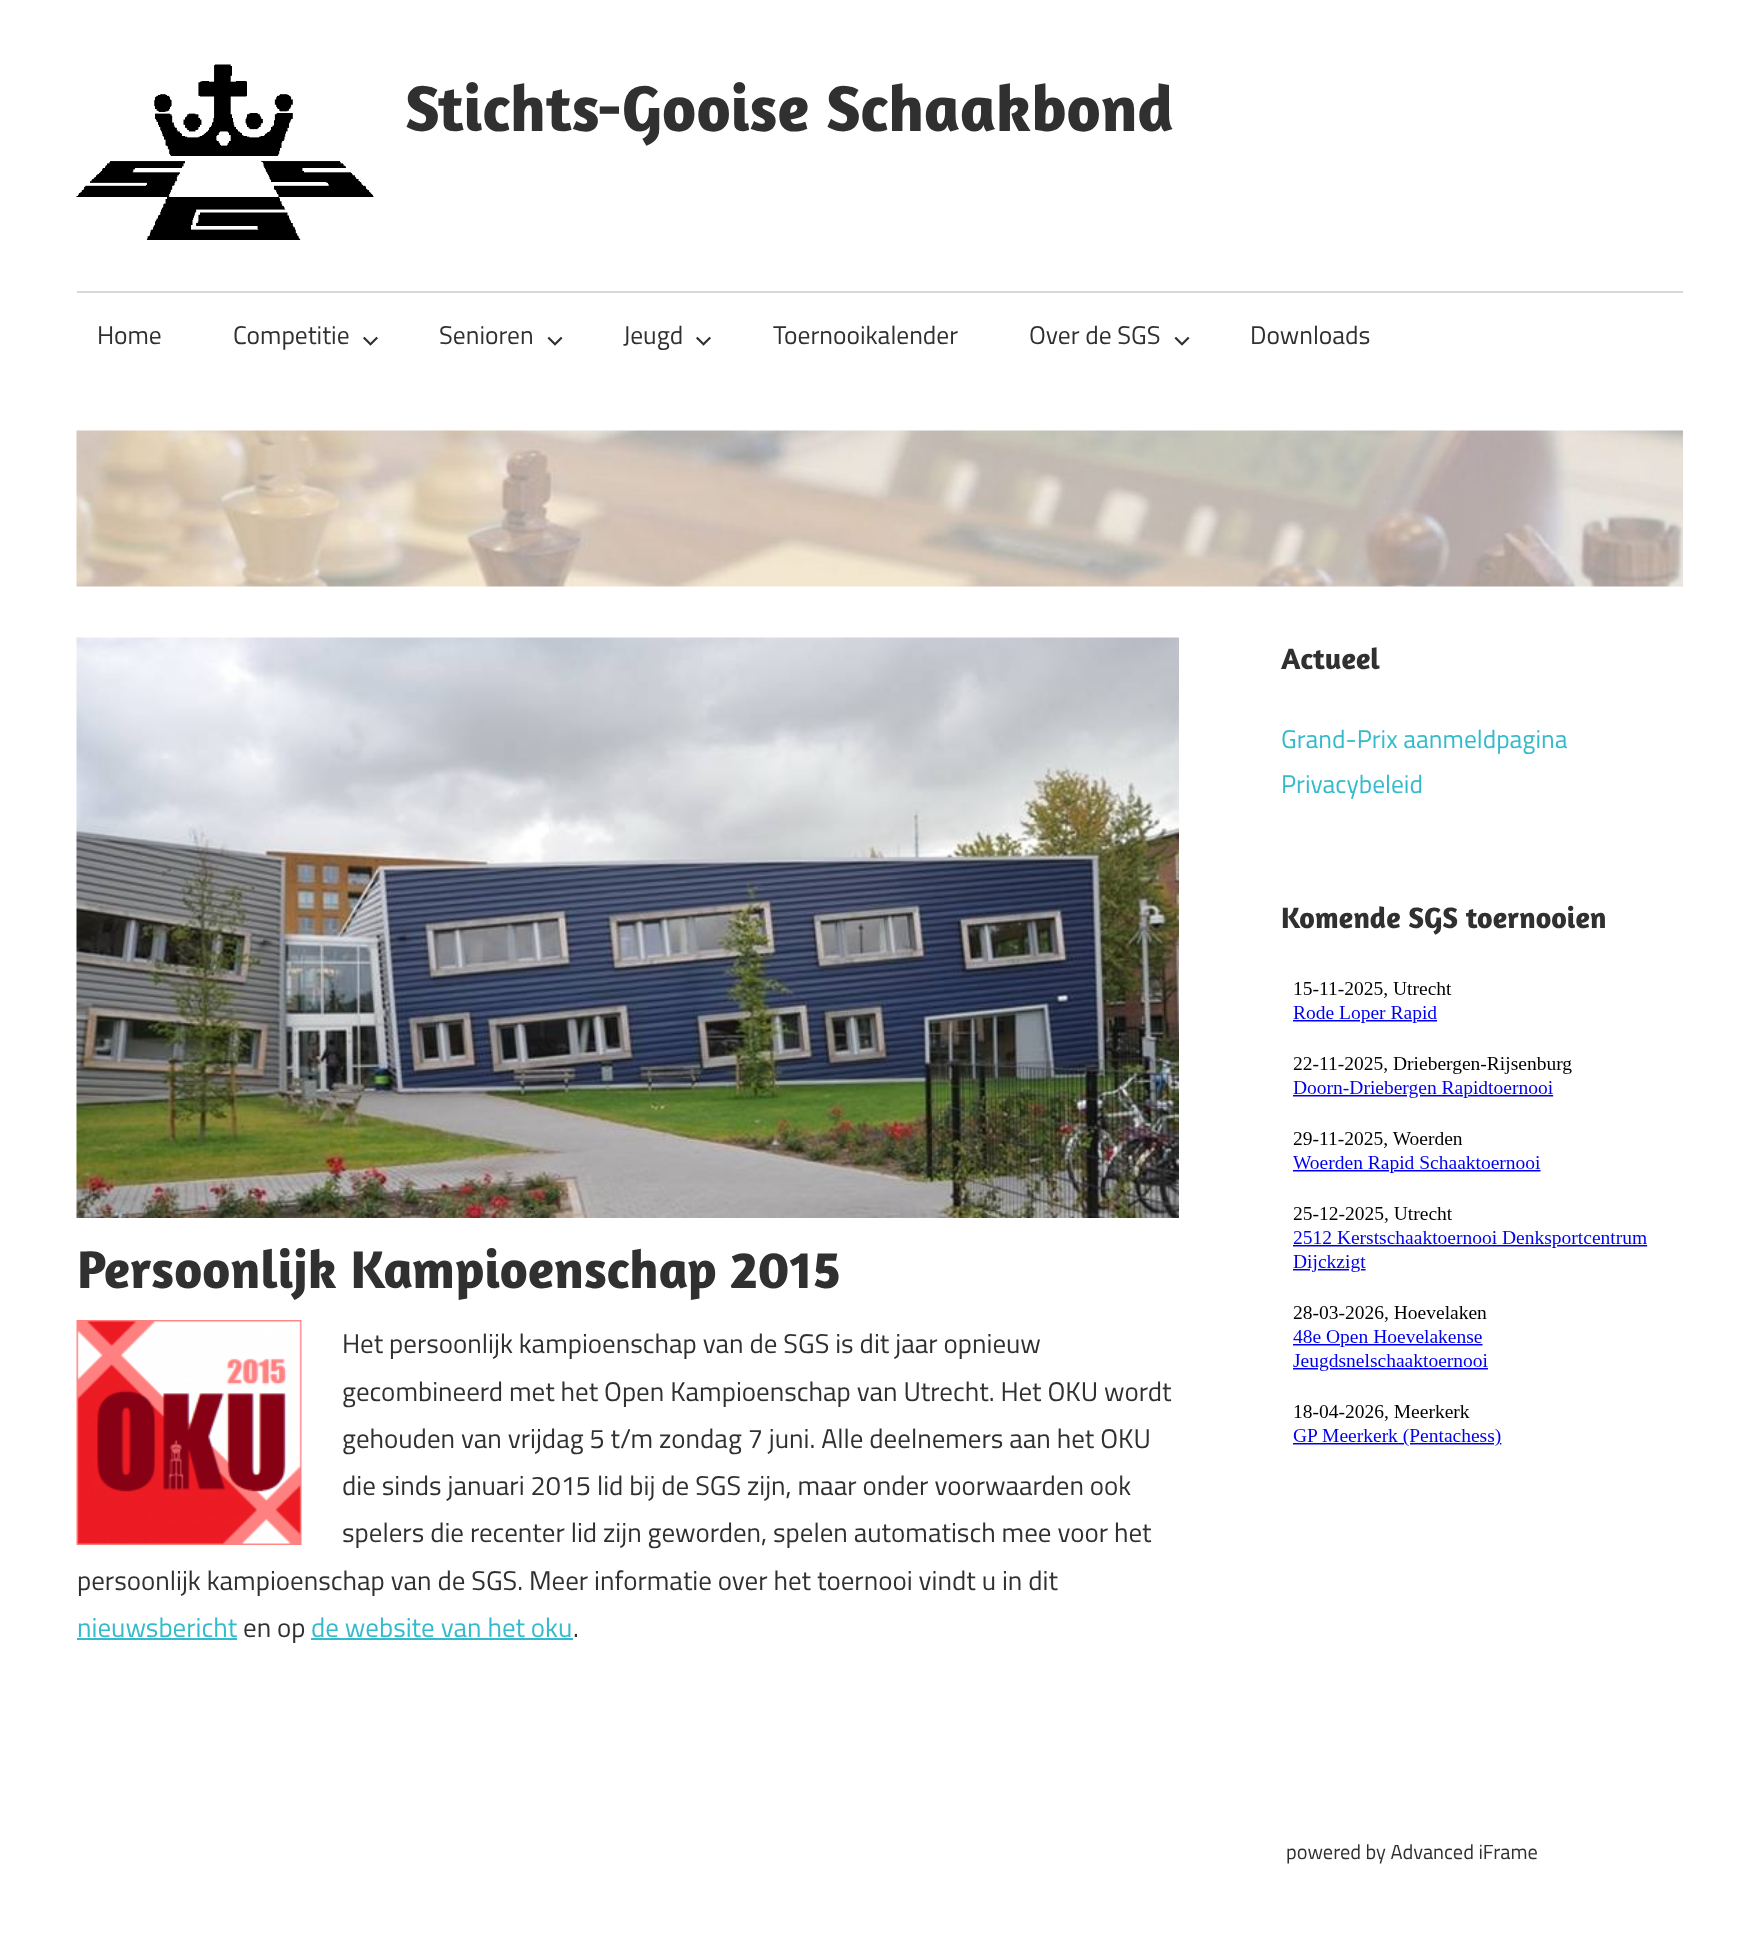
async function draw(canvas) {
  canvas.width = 1759;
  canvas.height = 1936;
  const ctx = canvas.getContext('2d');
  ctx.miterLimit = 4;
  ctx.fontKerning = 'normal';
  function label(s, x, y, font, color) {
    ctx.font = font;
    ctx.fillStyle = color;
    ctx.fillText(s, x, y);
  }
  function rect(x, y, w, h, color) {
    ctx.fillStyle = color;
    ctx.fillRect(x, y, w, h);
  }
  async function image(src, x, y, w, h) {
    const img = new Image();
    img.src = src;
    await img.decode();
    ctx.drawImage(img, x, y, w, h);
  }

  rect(0, 0, 1759, 1936, '#fff');
  await image('assets/img1.png', 76, 64, 298, 176);
  label('Stichts-Gooise Schaakbond', 405, 131, 'bold 66px Amaranth', '#303030');
  rect(77, 291, 1606, 2, '#d9d9d9');
  label('Home', 97, 344, '25.5px Titillium Web', '#303030');
  label('Competitie', 233, 344, '25.5px Titillium Web', '#303030');
  await image('assets/img2.png', 363, 336, 15, 10);
  label('Senioren', 439, 344, '25.5px Titillium Web', '#303030');
  await image('assets/img3.png', 547, 336, 16, 10);
  label('Jeugd', 623, 344, '25.5px Titillium Web', '#303030');
  await image('assets/img2.png', 696, 336, 15, 10);
  label('Toernooikalender', 773, 344, '25.5px Titillium Web', '#303030');
  label('Over de SGS', 1029, 344, '25.5px Titillium Web', '#303030');
  await image('assets/img3.png', 1174, 336, 16, 10);
  label('Downloads', 1250, 344, '25.5px Titillium Web', '#303030');
  await image('assets/img4.png', 76, 430, 1607, 157);
  await image('assets/img5.png', 76, 637, 1103, 581);
  label('Persoonlijk Kampioenschap 2015', 77, 1288, 'bold 54px Amaranth', '#303030');
  await image('assets/img6.png', 76, 1320, 226, 225);
  label('Het persoonlijk kampioenschap van de SGS is dit jaar opnieuw', 342, 1353, '27px Titillium Web', '#303030');
  label('gecombineerd met het Open Kampioenschap van Utrecht. Het OKU wordt', 342, 1401, '27px Titillium Web', '#303030');
  label('gehouden van vrijdag 5 t/m zondag 7 juni. Alle deelnemers aan het OKU', 342, 1448, '27px Titillium Web', '#303030');
  label('die sinds januari 2015 lid bij de SGS zijn, maar onder voorwaarden ook', 342, 1495, '27px Titillium Web', '#303030');
  label('spelers die recenter lid zijn geworden, spelen automatisch mee voor het', 342, 1542, '27px Titillium Web', '#303030');
  label('persoonlijk kampioenschap van de SGS. Meer informatie over het toernooi vindt u in dit', 77, 1590, '27px Titillium Web', '#303030');
  label('nieuwsbericht', 77, 1637, '27px Titillium Web', '#3bc');
  rect(77, 1638, 160, 2, '#3bc');
  label('en op', 243, 1637, '27px Titillium Web', '#303030');
  label('de website van het oku', 311, 1637, '27px Titillium Web', '#3bc');
  rect(311, 1638, 262, 2, '#3bc');
  label('.', 573, 1637, '27px Titillium Web', '#303030');
  label('Actueel', 1281, 669, 'bold 30px Amaranth', '#303030');
  label('Grand-Prix aanmeldpagina', 1281, 748, '25.5px Titillium Web', '#3bc');
  label('Privacybeleid', 1281, 793, '25.5px Titillium Web', '#3bc');
  label('Komende SGS toernooien', 1281, 928, 'bold 30px Amaranth', '#303030');
  await image('assets/img7.png', 1287, 982, 361, 856);
  label('powered by Advanced iFrame', 1286, 1859, '20.4px Titillium Web', '#303030');
}

draw(document.querySelector('canvas'));
